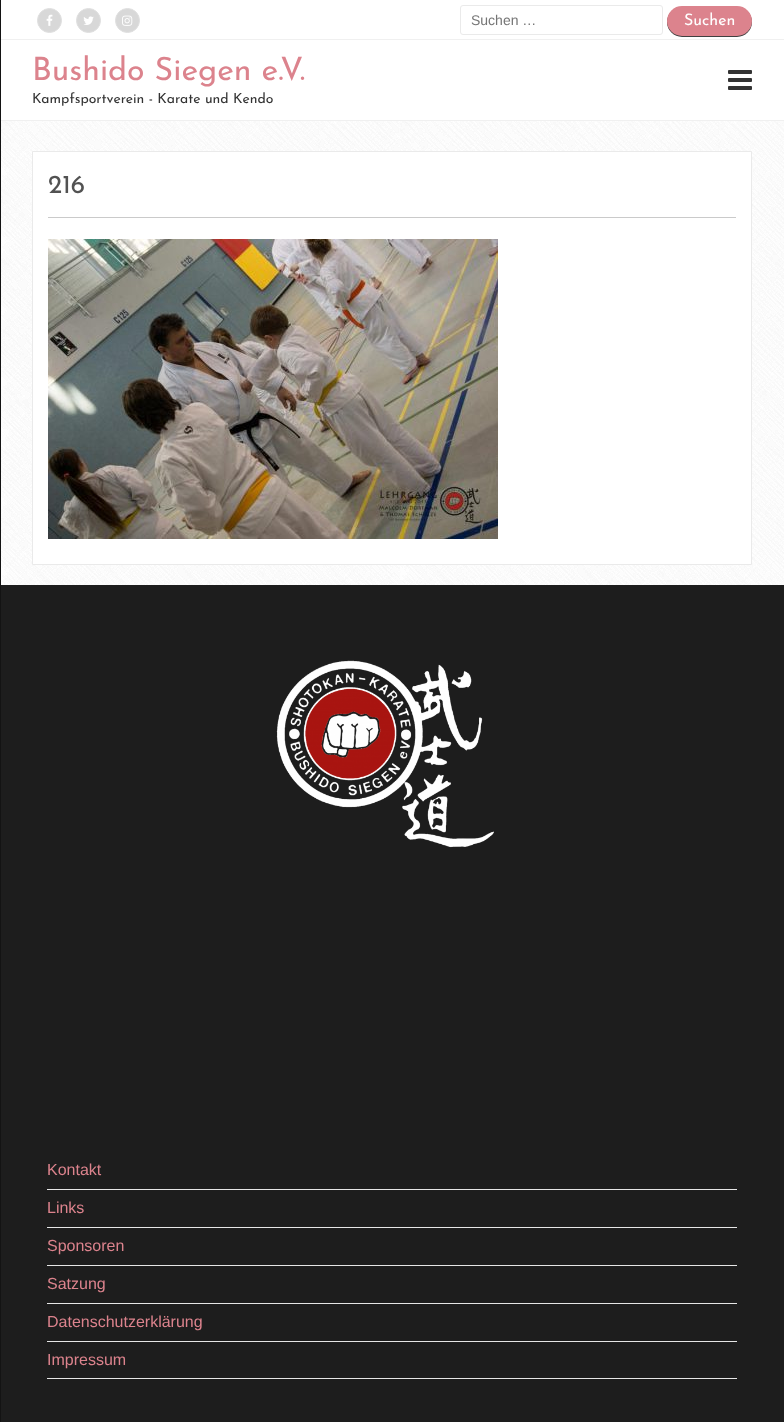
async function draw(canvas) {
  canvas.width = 784;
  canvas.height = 1422;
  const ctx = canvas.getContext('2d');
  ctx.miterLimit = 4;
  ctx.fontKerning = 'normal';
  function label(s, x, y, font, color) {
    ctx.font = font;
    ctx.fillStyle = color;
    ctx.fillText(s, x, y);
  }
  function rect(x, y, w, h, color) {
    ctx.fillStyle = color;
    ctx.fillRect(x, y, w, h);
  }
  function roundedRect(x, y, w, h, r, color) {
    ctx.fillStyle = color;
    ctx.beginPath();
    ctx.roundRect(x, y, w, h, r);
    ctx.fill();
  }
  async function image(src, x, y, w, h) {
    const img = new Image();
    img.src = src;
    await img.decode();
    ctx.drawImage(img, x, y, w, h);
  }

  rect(0, 0, 784, 1422, '#fff');
  await image('assets/img1.png', 1, 121, 783, 464);
  rect(0, 120, 784, 1, '#f0f0f0');
  rect(0, 39, 784, 1, '#f0f0f0');
  ctx.fillStyle = '#d8d8d8';
  ctx.beginPath();
  ctx.arc(49.5, 20.5, 12, 0, 2 * Math.PI);
  ctx.fill();
  ctx.strokeStyle = '#e0e0e0';
  ctx.stroke();
  await image('assets/img2.png', 46, 14, 7, 12);
  ctx.beginPath();
  ctx.arc(88.5, 20.5, 12, 0, 2 * Math.PI);
  ctx.fill();
  ctx.stroke();
  await image('assets/img3.png', 83, 16, 11, 9);
  ctx.beginPath();
  ctx.arc(127.5, 20.5, 12, 0, 2 * Math.PI);
  ctx.fill();
  ctx.stroke();
  await image('assets/img4.png', 122, 15, 11, 11);
  ctx.beginPath();
  ctx.roundRect(460.5, 5.5, 202, 29, 2.5);
  ctx.strokeStyle = '#eaeaea';
  ctx.stroke();
  label('Suchen …', 471, 25, '14px Liberation Sans', '#757575');
  ctx.fillStyle = '#000000bf';
  ctx.filter = 'blur(0.5px)';
  ctx.beginPath();
  ctx.roundRect(667, 7, 85, 30, 15);
  ctx.fill();
  ctx.filter = 'none';
  roundedRect(667, 6, 85, 30, 15, '#dc838d');
  label('Suchen', 684, 25, '16px Josefin Sans', '#fff');
  rect(0, 0, 1, 1422, '#131313');
  label('Bushido Siegen e.V.', 32, 80, '32px Josefin Sans', '#dc838d');
  label('Kampfsportverein - Karate und Kendo', 32, 103, '14px Josefin Sans', '#333');
  await image('assets/img5.png', 728, 70, 24, 20);
  ctx.fillStyle = '#fff';
  ctx.beginPath();
  ctx.rect(32.5, 151.5, 719, 413);
  ctx.fill();
  ctx.stroke();
  rect(48, 217, 688, 1, '#cacaca');
  label('216', 48, 193, '26px Josefin Sans', '#525252');
  await image('assets/img6.png', 48, 239, 450, 300);
  rect(1, 585, 783, 837, '#1d1d1d');
  await image('assets/img7.png', 276, 660, 218, 188);
  rect(47, 1189, 690, 1, '#e6e6e6');
  label('Kontakt', 47, 1175, '16px Liberation Sans', '#dc838d');
  rect(47, 1227, 690, 1, '#e6e6e6');
  label('Links', 47, 1213, '16px Liberation Sans', '#dc838d');
  rect(47, 1265, 690, 1, '#e6e6e6');
  label('Sponsoren', 47, 1251, '16px Liberation Sans', '#dc838d');
  rect(47, 1303, 690, 1, '#e6e6e6');
  label('Satzung', 47, 1289, '16px Liberation Sans', '#dc838d');
  rect(47, 1341, 690, 1, '#e6e6e6');
  label('Datenschutzerklärung', 47, 1327, '16px Liberation Sans', '#dc838d');
  rect(47, 1378, 690, 1, '#e6e6e6');
  label('Impressum', 47, 1365, '16px Liberation Sans', '#dc838d');
}

draw(document.querySelector('canvas'));
